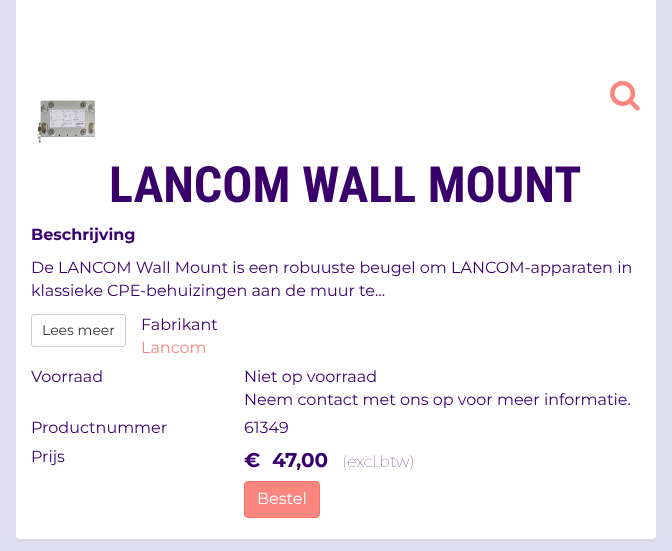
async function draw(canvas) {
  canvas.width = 672;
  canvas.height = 551;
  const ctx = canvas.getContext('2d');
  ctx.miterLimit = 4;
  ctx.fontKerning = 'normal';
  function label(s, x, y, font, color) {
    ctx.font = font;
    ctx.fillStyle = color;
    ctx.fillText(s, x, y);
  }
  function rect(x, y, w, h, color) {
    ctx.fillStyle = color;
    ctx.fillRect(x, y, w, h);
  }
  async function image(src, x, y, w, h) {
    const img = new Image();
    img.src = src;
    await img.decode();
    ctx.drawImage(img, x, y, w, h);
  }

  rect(0, 0, 672, 551, '#dedef0');
  ctx.fillStyle = '#0000000d';
  ctx.filter = 'blur(0.5px)';
  ctx.beginPath();
  ctx.roundRect(15, -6, 642, 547, 4);
  ctx.fill();
  ctx.filter = 'none';
  ctx.fillStyle = '#fff';
  ctx.beginPath();
  ctx.roundRect(15.5, -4.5, 641, 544, 3.5);
  ctx.fill();
  ctx.strokeStyle = '#ddd';
  ctx.stroke();
  await image('assets/img1.png', 610, 80, 30, 31);
  await image('assets/img2.png', 37, 100, 58, 44);
  label('LANCOM WALL MOUNT', 109, 202, 'bold 50px Roboto Condensed', '#39006c');
  label('Beschrijving', 31, 240, 'bold 16px Montserrat', '#39006c');
  label('De LANCOM Wall Mount is een robuuste beugel om LANCOM-apparaten in', 31, 273, '16px Montserrat', '#39006c');
  label('klassieke CPE', 31, 296, '16px Montserrat', '#39006c');
  label('-behuizingen aan de muur te...', 140, 296, '16px Montserrat', '#39006c');
  ctx.beginPath();
  ctx.roundRect(31.5, 314.5, 94, 32, 2.5);
  ctx.strokeStyle = '#ccc';
  ctx.stroke();
  label('Lees meer', 42, 335, '14px Montserrat', '#333');
  label('Fabrikant', 141, 330, '16px Montserrat', '#39006c');
  label('Lancom', 141, 353, '16px Montserrat', '#fa877f');
  label('Voorraad', 31, 382, '16px Montserrat', '#39006c');
  label('Niet op voorraad', 244, 382, '16px Montserrat', '#39006c');
  label('Neem contact met ons op voor meer informatie.', 244, 405, '16px Montserrat', '#39006c');
  label('Productnummer', 31, 433, '16px Montserrat', '#39006c');
  label('61349', 244, 433, '16px Montserrat', '#39006c');
  label('Prijs', 31, 462, '16px Montserrat', '#39006c');
  label('€', 244, 467, 'bold 20px Montserrat', '#39006c');
  label('47', 272, 467, 'bold 20px Montserrat', '#39006c');
  label(',00', 296, 467, 'bold 20px Montserrat', '#39006c');
  label('(excl.btw)', 342, 467, '100 16px Montserrat', '#39006c');
  ctx.fillStyle = '#fa877f';
  ctx.beginPath();
  ctx.roundRect(244.5, 481.5, 75, 36, 3.5);
  ctx.fill();
  ctx.strokeStyle = '#f97066';
  ctx.stroke();
  label('Bestel', 257, 504, '16px Montserrat', '#fff');
}

draw(document.querySelector('canvas'));
